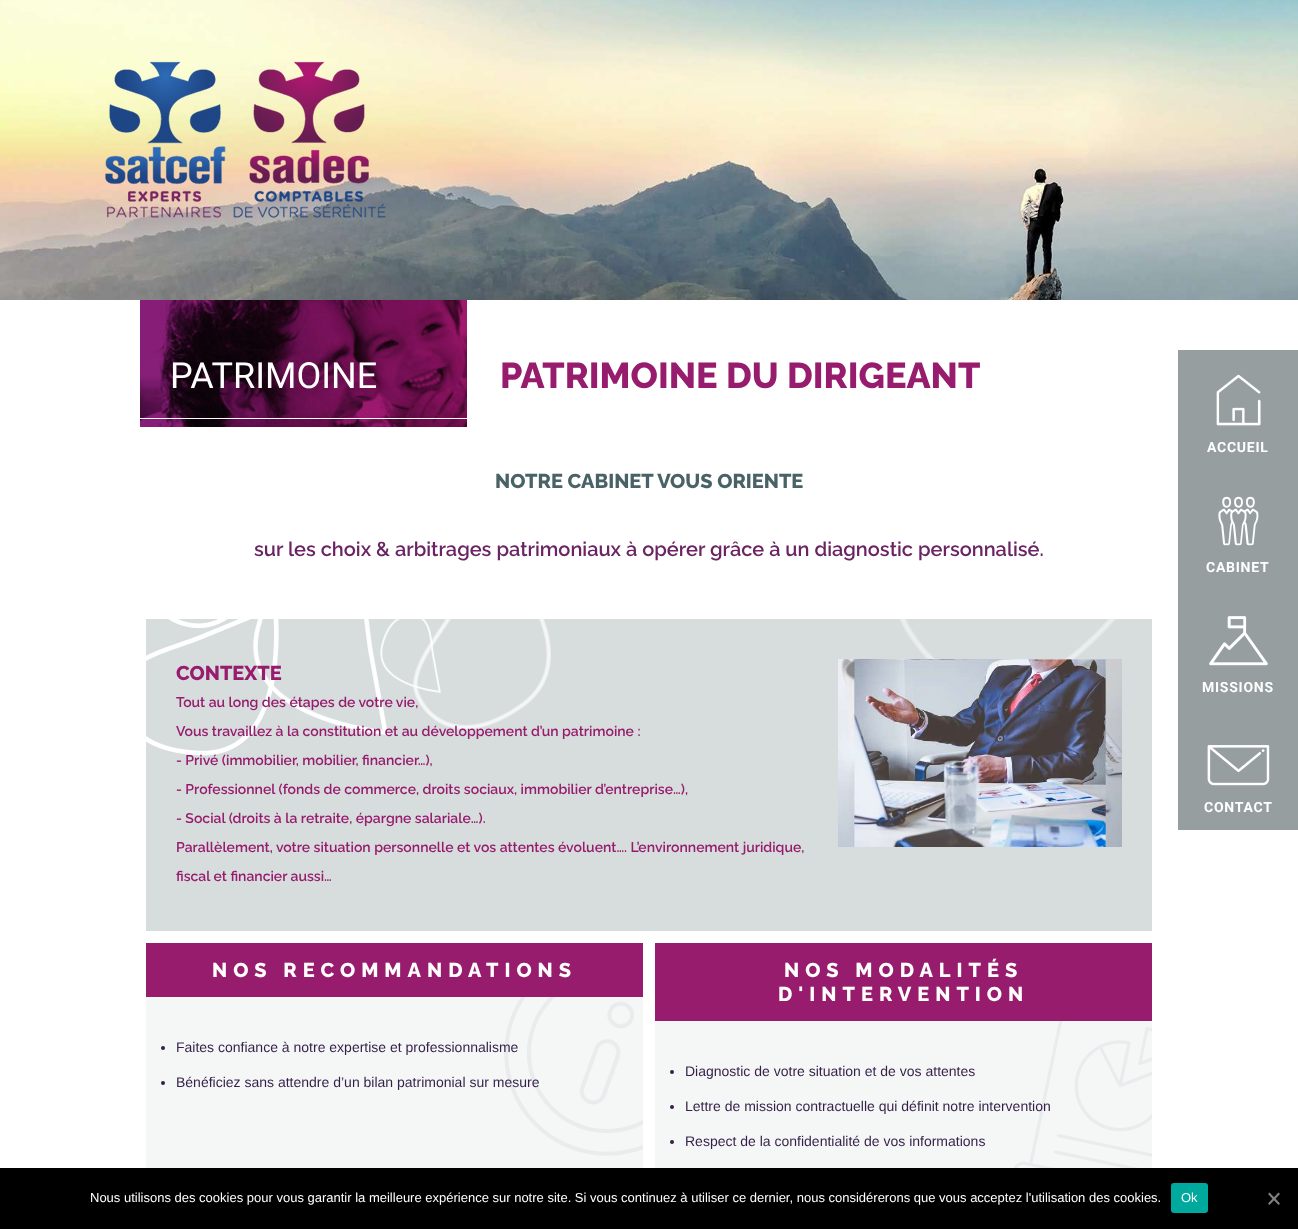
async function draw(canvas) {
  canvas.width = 1298;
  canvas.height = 1229;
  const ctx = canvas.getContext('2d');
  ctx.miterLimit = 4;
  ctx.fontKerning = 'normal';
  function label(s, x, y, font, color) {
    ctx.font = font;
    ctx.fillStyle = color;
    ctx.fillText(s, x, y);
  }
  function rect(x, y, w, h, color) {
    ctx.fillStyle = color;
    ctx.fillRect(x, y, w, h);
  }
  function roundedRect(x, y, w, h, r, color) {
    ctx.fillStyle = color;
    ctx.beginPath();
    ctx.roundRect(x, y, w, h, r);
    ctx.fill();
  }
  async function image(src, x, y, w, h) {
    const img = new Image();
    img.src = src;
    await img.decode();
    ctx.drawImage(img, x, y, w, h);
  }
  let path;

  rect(0, 0, 1298, 1229, '#fff');
  await image('assets/img1.png', 0, 0, 1298, 300);
  await image('assets/img2.png', 140, 300, 327, 127);
  label('PATRIMOINE', 170, 388, '36px Roboto', '#fff');
  rect(140, 418, 327, 1, '#fff');
  label('PATRIMOINE DU DIRIGEANT', 500, 388, '800 36px Raleway', '#971c6d');
  label('NOTRE CABINET VOUS ORIENTE', 495, 488, '800 20px Raleway', '#496266');
  label('sur les choix & arbitrages patrimoniaux à opérer grâce à un diagnostic personnalisé.', 254, 556, '600 20px Raleway', '#6a2463');
  rect(146, 619, 1006, 312, '#d7dddd');
  await image('assets/img4.png', 168, 619, 60, 9);
  await image('assets/img3.png', 146, 619, 133, 137);
  await image('assets/img5.png', 253, 619, 135, 116);
  await image('assets/img6.png', 380, 619, 61, 74);
  await image('assets/img7.png', 413, 619, 138, 111);
  await image('assets/img8.png', 899, 619, 217, 40);
  label('CONTEXTE', 176, 680, '800 20px Raleway', '#971c6d');
  await image('assets/img9.png', 838, 659, 284, 188);
  label('Tout au long des étapes de votre vie,', 176, 707, '600 14px Raleway', '#971c6d');
  label('Vous travaillez à la constitution et au développement d’un patrimoine :', 176, 736, '600 14px Raleway', '#971c6d');
  label('- Privé (immobilier, mobilier, financier…),', 176, 765, '600 14px Raleway', '#971c6d');
  label('- Professionnel (fonds de commerce, droits sociaux, immobilier d’entreprise…),', 176, 794, '600 14px Raleway', '#971c6d');
  label('- Social (droits à la retraite, épargne salariale…).', 176, 823, '600 14px Raleway', '#971c6d');
  label('Parallèlement, votre situation personnelle et vos attentes évoluent…. L’environnement juridique,', 176, 852, '600 14px Raleway', '#971c6d');
  label('fiscal et financier aussi…', 176, 881, '600 14px Raleway', '#971c6d');
  rect(146, 997, 497, 171, '#f5f7f7');
  await image('assets/img10.png', 504, 997, 139, 159);
  rect(146, 943, 497, 54, '#971c6d');
  ctx.letterSpacing = '6px';
  label('NOS RECOMMANDATIONS', 212, 977, '800 20px Raleway', '#fff');
  ctx.fillStyle = '#351f48';
  ctx.beginPath();
  ctx.arc(163, 1048, 2, 0, 2 * Math.PI);
  ctx.fill();
  ctx.letterSpacing = '0px';
  label('Faites confiance à notre expertise et professionnalisme', 176, 1052, '14px Liberation Sans', '#351f48');
  ctx.beginPath();
  ctx.arc(163, 1083, 2, 0, 2 * Math.PI);
  ctx.fill();
  label('Bénéficiez sans attendre d’un bilan patrimonial sur mesure', 176, 1087, '14px Liberation Sans', '#351f48');
  rect(655, 1021, 497, 147, '#f5f7f7');
  await image('assets/img11.png', 1013, 1021, 139, 147);
  rect(655, 943, 497, 78, '#971c6d');
  ctx.letterSpacing = '6px';
  label('NOS MODALITÉS', 784, 977, '800 20px Raleway', '#fff');
  label('D\'INTERVENTION', 778, 1001, '800 20px Raleway', '#fff');
  ctx.fillStyle = '#351f48';
  ctx.beginPath();
  ctx.arc(672, 1072, 2, 0, 2 * Math.PI);
  ctx.fill();
  ctx.letterSpacing = '0px';
  label('Diagnostic de votre situation et de vos attentes', 685, 1076, '14px Liberation Sans', '#351f48');
  ctx.beginPath();
  ctx.arc(672, 1107, 2, 0, 2 * Math.PI);
  ctx.fill();
  label('Lettre de mission contractuelle qui définit notre intervention', 685, 1111, '14px Liberation Sans', '#351f48');
  ctx.beginPath();
  ctx.arc(672, 1142, 2, 0, 2 * Math.PI);
  ctx.fill();
  label('Respect de la confidentialité de vos informations', 685, 1146, '14px Liberation Sans', '#351f48');
  await image('assets/img12.png', 105, 61, 281, 157);
  rect(1178, 350, 120, 480, '#979e9f');
  await image('assets/img13.png', 1216, 374, 45, 52);
  ctx.letterSpacing = '0.75px';
  label('ACCUEIL', 1207, 452, 'bold 14px Roboto', '#fff');
  await image('assets/img14.png', 1218, 496, 41, 50);
  label('CABINET', 1206, 572, 'bold 14px Roboto', '#fff');
  await image('assets/img15.png', 1209, 616, 59, 50);
  label('MISSIONS', 1202, 692, 'bold 14px Roboto', '#fff');
  await image('assets/img16.png', 1207, 745, 63, 41);
  label('CONTACT', 1204, 812, 'bold 14px Roboto', '#fff');
  rect(0, 1168, 1298, 61, '#000');
  ctx.letterSpacing = '0px';
  label('Nous utilisons des cookies pour vous garantir la meilleure expérience sur notre site. Si vous continuez à utiliser ce dernier, nous considérerons que vous acceptez l\'utilisation des cookies.', 90, 1202, '13px Liberation Sans', '#fff');
  roundedRect(1171, 1183, 37, 30, 3, '#00a99d');
  label('Ok', 1181, 1202, '13px Liberation Sans', '#fff');
  ctx.fillStyle = '#808080';
  path = new Path2D('M1278.5 1192.5L1280 1194L1269.5 1205L1268 1203.5Z');
  ctx.fill(path);
  path = new Path2D('M1268 1194L1269.5 1192.5L1280 1203.5L1278.5 1205Z');
  ctx.fill(path);
}

draw(document.querySelector('canvas'));
